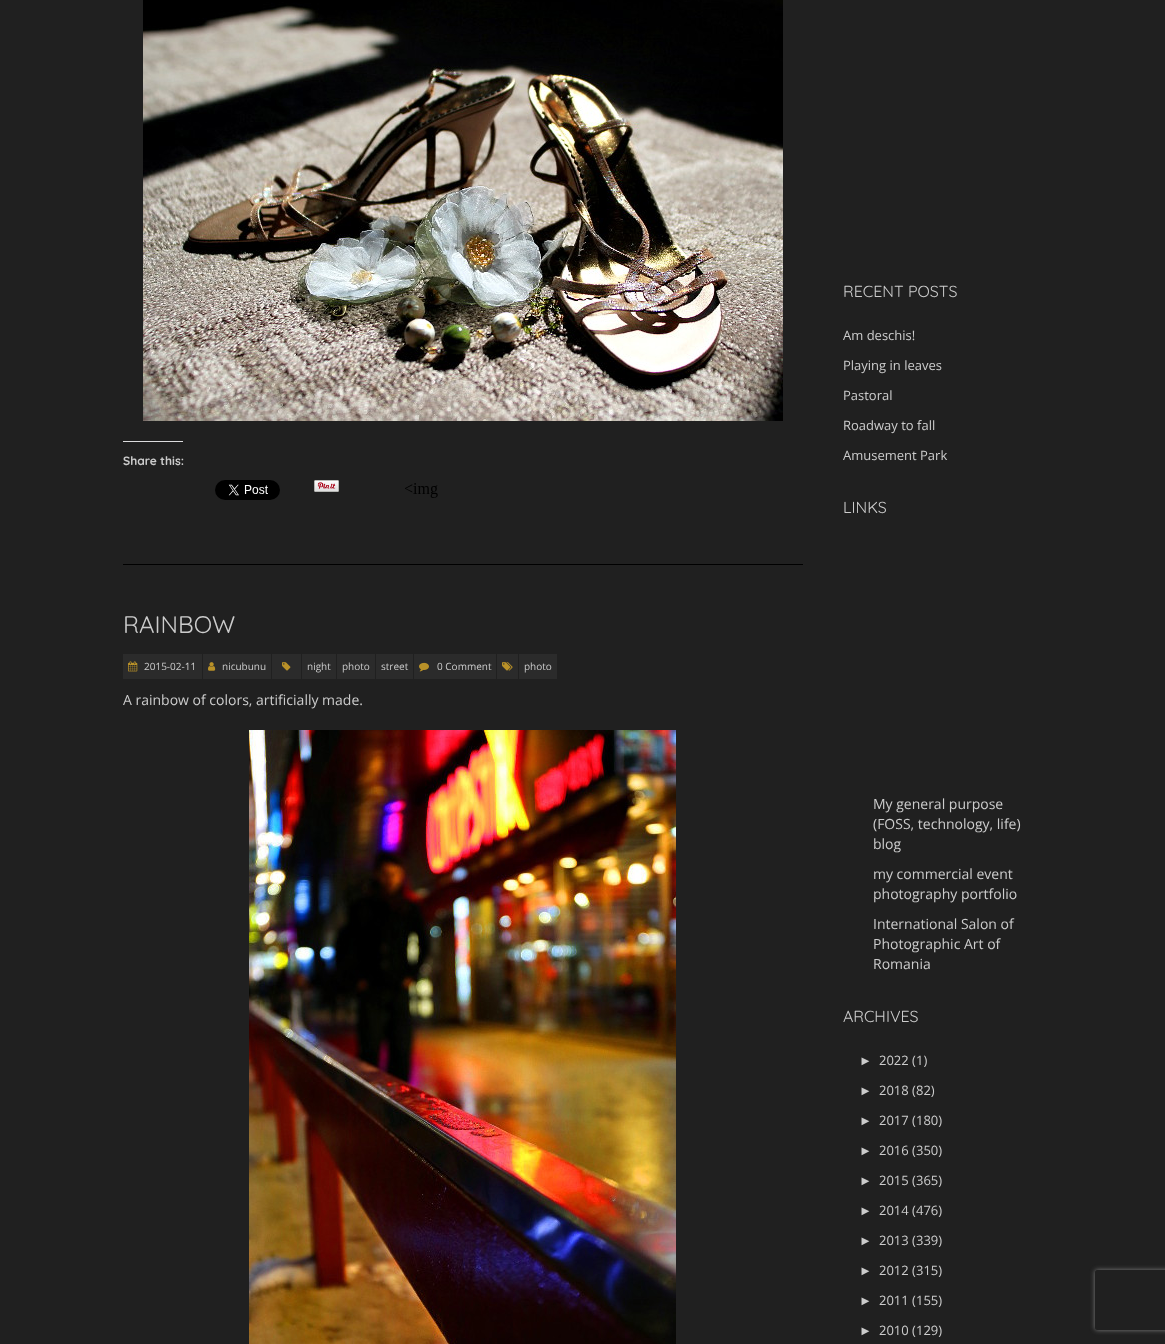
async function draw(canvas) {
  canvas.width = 1165;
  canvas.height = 1344;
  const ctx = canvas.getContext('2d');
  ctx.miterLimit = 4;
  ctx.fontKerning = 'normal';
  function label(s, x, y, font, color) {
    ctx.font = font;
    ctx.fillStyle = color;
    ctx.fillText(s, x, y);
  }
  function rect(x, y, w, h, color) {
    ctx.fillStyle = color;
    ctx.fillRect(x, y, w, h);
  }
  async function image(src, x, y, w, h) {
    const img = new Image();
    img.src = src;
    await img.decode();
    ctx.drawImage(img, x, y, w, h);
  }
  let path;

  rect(0, 0, 1165, 1344, '#202020');
  await image('assets/img1.png', 143, 0, 640, 421);
  rect(123, 441, 60, 1, '#dcdcde');
  label('Share this:', 123, 465, 'bold 12px Quicksand', '#ccc');
  await image('assets/img2.png', 215, 480, 65, 20);
  await image('assets/img3.png', 314, 480, 25, 12);
  await image('assets/img4.png', 405, 483, 33, 15);
  rect(123, 564, 680, 1, '#000');
  label('RAINBOW', 123, 633, '24px Quicksand', '#ccc');
  rect(123, 654, 79, 25, '#2b2b2b');
  await image('assets/img5.png', 128, 661, 10, 11);
  label('2015-02-11', 144, 670, '10px Open Sans', '#ccc');
  rect(203, 654, 68, 25, '#2b2b2b');
  await image('assets/img6.png', 208, 662, 8, 9);
  label('nicubunu', 222, 670, '10px Open Sans', '#ccc');
  rect(272, 654, 29, 25, '#2b2b2b');
  await image('assets/img7.png', 282, 662, 9, 9);
  rect(302, 654, 34, 25, '#2b2b2b');
  label('night', 307, 670, '10px Open Sans', '#ccc');
  rect(337, 654, 38, 25, '#2b2b2b');
  label('photo', 342, 670, '10px Open Sans', '#ccc');
  rect(376, 654, 37, 25, '#2b2b2b');
  label('street', 381, 670, '10px Open Sans', '#ccc');
  rect(414, 654, 82, 25, '#2b2b2b');
  await image('assets/img8.png', 419, 662, 10, 10);
  label('0 Comment', 437, 670, '10px Open Sans', '#ccc');
  rect(497, 654, 21, 25, '#2b2b2b');
  await image('assets/img9.png', 502, 662, 11, 9);
  rect(519, 654, 38, 25, '#2b2b2b');
  label('photo', 524, 670, '10px Open Sans', '#ccc');
  label('A rainbow of colors, artificially made.', 123, 705, '14px Open Sans', '#ccc');
  await image('assets/img10.png', 249, 730, 427, 614);
  label('RECENT POSTS', 843, 297, '16px Quicksand', '#ccc');
  label('Am deschis!', 843, 340, '13px Open Sans', '#ccc');
  label('Playing in leaves', 843, 370, '13px Open Sans', '#ccc');
  label('Pastoral', 843, 400, '13px Open Sans', '#ccc');
  label('Roadway to fall', 843, 430, '13px Open Sans', '#ccc');
  label('Amusement Park', 843, 460, '13px Open Sans', '#ccc');
  label('LINKS', 843, 513, '16px Quicksand', '#ccc');
  label('My general purpose', 873, 809, '14px Open Sans', '#ccc');
  label('(FOSS, technology, life)', 873, 829, '14px Open Sans', '#ccc');
  label('blog', 873, 849, '14px Open Sans', '#ccc');
  label('my commercial event', 873, 879, '14px Open Sans', '#ccc');
  label('photography portfolio', 873, 899, '14px Open Sans', '#ccc');
  label('International Salon of', 873, 929, '14px Open Sans', '#ccc');
  label('Photographic Art of', 873, 949, '14px Open Sans', '#ccc');
  label('Romania', 873, 969, '14px Open Sans', '#ccc');
  label('ARCHIVES', 843, 1022, '16px Quicksand', '#ccc');
  label('►', 859, 1065, '13px Liberation Sans', '#ccc');
  label('2022 (1)', 879, 1065, '13px Open Sans', '#ccc');
  label('►', 859, 1095, '13px Liberation Sans', '#ccc');
  label('2018 (82)', 879, 1095, '13px Open Sans', '#ccc');
  label('►', 859, 1125, '13px Liberation Sans', '#ccc');
  label('2017 (180)', 879, 1125, '13px Open Sans', '#ccc');
  label('►', 859, 1155, '13px Liberation Sans', '#ccc');
  label('2016 (350)', 879, 1155, '13px Open Sans', '#ccc');
  label('►', 859, 1185, '13px Liberation Sans', '#ccc');
  label('2015 (365)', 879, 1185, '13px Open Sans', '#ccc');
  label('►', 859, 1215, '13px Liberation Sans', '#ccc');
  label('2014 (476)', 879, 1215, '13px Open Sans', '#ccc');
  label('►', 859, 1245, '13px Liberation Sans', '#ccc');
  label('2013 (339)', 879, 1245, '13px Open Sans', '#ccc');
  label('►', 859, 1275, '13px Liberation Sans', '#ccc');
  label('2012 (315)', 879, 1275, '13px Open Sans', '#ccc');
  label('►', 859, 1305, '13px Liberation Sans', '#ccc');
  label('2011 (155)', 879, 1305, '13px Open Sans', '#ccc');
  label('►', 859, 1335, '13px Liberation Sans', '#ccc');
  label('2010 (129)', 879, 1335, '13px Open Sans', '#ccc');
  ctx.save();
  path = new Path2D('M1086 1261H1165V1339H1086ZM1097 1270H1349C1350 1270 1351 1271 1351 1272V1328C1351 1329 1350 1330 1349 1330H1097C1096 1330 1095 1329 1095 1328V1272C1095 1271 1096 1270 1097 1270Z');
  ctx.clip(path, 'evenodd');
  ctx.fillStyle = '#808080';
  ctx.filter = 'blur(2.5px)';
  ctx.beginPath();
  ctx.roundRect(1095, 1270, 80, 60, 2);
  ctx.fill();
  ctx.filter = 'none';
  ctx.restore();
}

draw(document.querySelector('canvas'));
